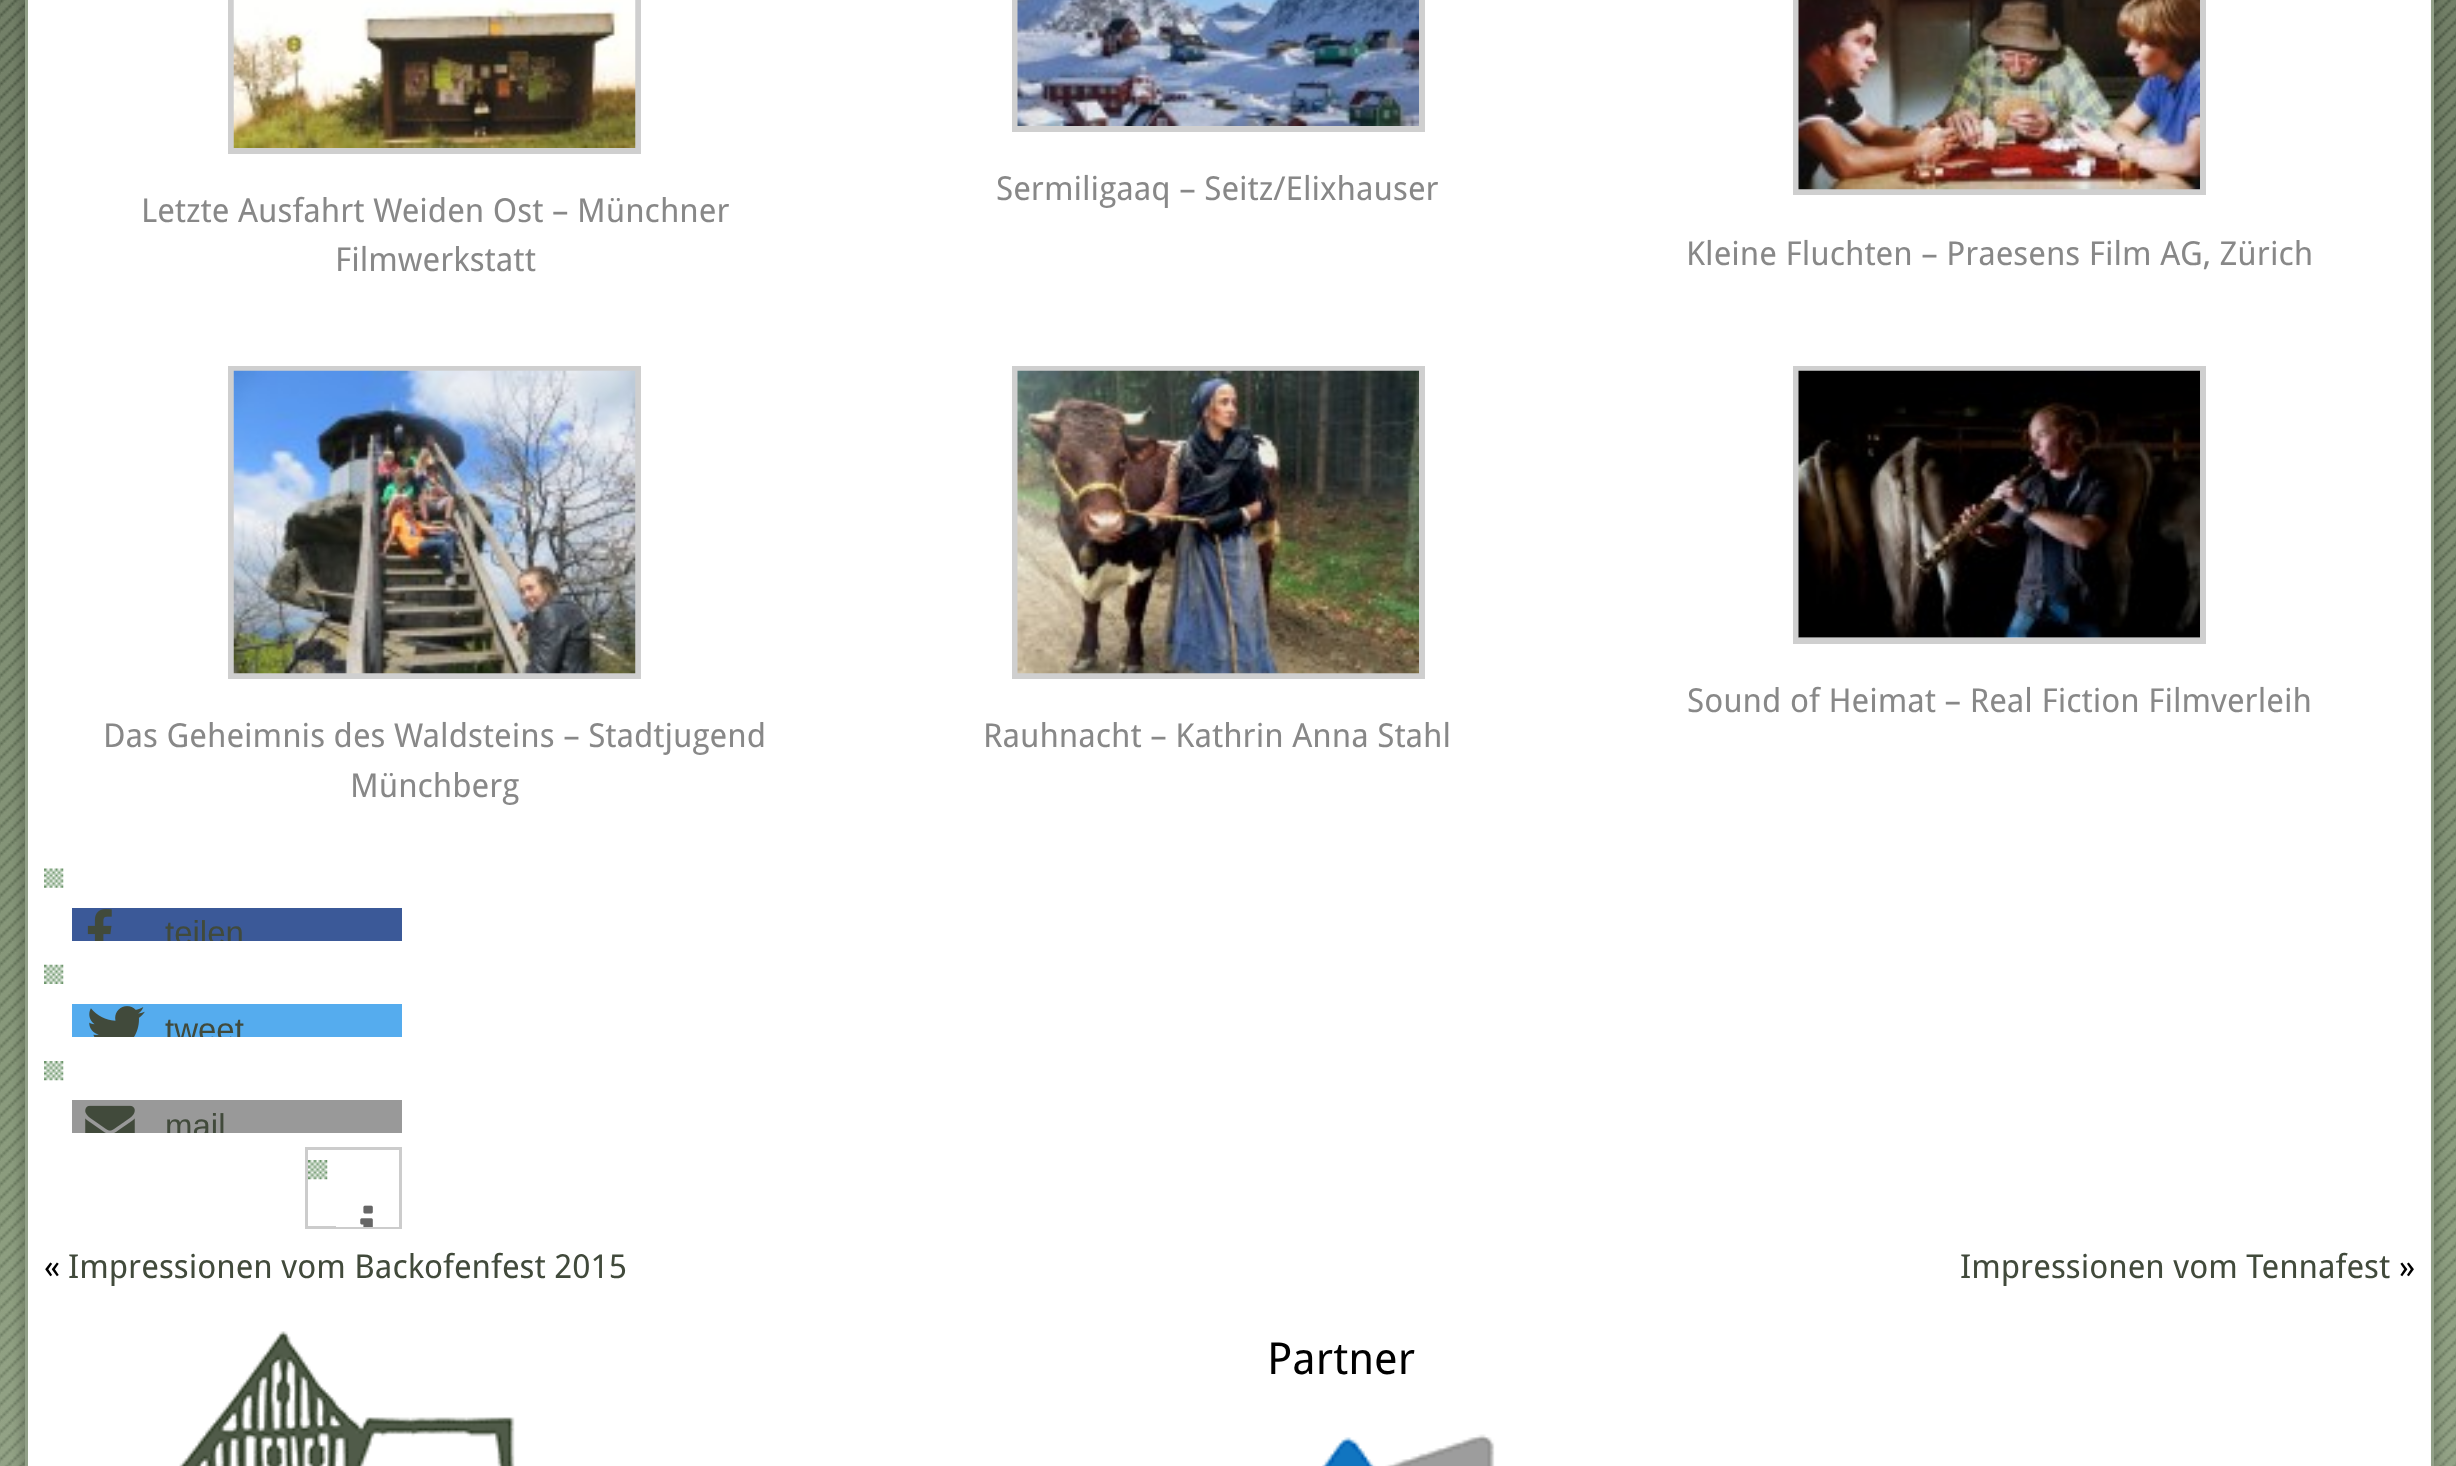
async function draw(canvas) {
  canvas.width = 2456;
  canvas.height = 1466;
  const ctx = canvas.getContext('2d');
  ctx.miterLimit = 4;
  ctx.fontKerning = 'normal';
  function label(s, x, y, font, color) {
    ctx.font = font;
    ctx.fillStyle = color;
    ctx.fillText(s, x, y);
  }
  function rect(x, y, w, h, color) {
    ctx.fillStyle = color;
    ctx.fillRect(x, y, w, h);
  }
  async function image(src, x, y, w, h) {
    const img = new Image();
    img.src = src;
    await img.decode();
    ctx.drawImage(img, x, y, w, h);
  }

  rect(0, 0, 2456, 1466, '#fff');
  await image('assets/img1.png', 0, 0, 2456, 1466);
  ctx.fillStyle = '#00000026';
  ctx.filter = 'blur(4px)';
  ctx.beginPath();
  ctx.rect(19, -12, 2420, 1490);
  ctx.fill();
  ctx.filter = 'none';
  ctx.fillStyle = '#fff';
  ctx.beginPath();
  ctx.rect(26.5, -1.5, 2406, 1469);
  ctx.fill();
  ctx.strokeStyle = '#92a088';
  ctx.lineWidth = 3;
  ctx.stroke();
  ctx.strokeStyle = '#cfcfcf';
  ctx.lineWidth = 6;
  ctx.strokeRect(1015, -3, 407, 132);
  await image('assets/img2.png', 1017, 0, 402, 126);
  label('Sermiligaaq – Seitz/Elixhauser', 996, 200, '33px Droid Sans', '#888');
  ctx.strokeRect(231, -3, 407, 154);
  await image('assets/img3.png', 233, 0, 403, 148);
  label('Letzte Ausfahrt Weiden Ost – Münchner', 141, 222, '33px Droid Sans', '#888');
  label('Filmwerkstatt', 335, 271, '33px Droid Sans', '#888');
  ctx.strokeRect(1796, -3, 407, 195);
  await image('assets/img4.png', 1798, 0, 402, 190);
  label('Kleine Fluchten – Praesens Film AG, Zürich', 1686, 265, '33px Droid Sans', '#888');
  ctx.strokeRect(1796, 369, 407, 272);
  await image('assets/img5.png', 1798, 370, 402, 268);
  label('Sound of Heimat – Real Fiction Filmverleih', 1687, 712, '33px Droid Sans', '#888');
  ctx.strokeRect(231, 369, 407, 307);
  await image('assets/img6.png', 233, 370, 403, 304);
  label('Das Geheimnis des Waldsteins – Stadtjugend', 103, 747, '33px Droid Sans', '#888');
  label('Münchberg', 350, 797, '33px Droid Sans', '#888');
  ctx.strokeRect(1015, 369, 407, 307);
  await image('assets/img7.png', 1017, 370, 402, 304);
  label('Rauhnacht – Kathrin Anna Stahl', 983, 747, '33px Droid Sans', '#888');
  await image('assets/img8.png', 44, 868, 20, 20);
  rect(72, 908, 330, 33, '#3b5998');
  await image('assets/img9.png', 87, 909, 25, 32);
  ctx.save();
  ctx.beginPath();
  ctx.rect(44, 858, 358, 83);
  ctx.clip();
  label('teilen', 165, 944, '33px Liberation Sans', '#414a3b');
  ctx.restore();
  await image('assets/img10.png', 44, 964, 20, 20);
  rect(72, 1004, 330, 33, '#55acee');
  await image('assets/img11.png', 89, 1006, 56, 31);
  ctx.save();
  ctx.beginPath();
  ctx.rect(44, 954, 358, 83);
  ctx.clip();
  label('tweet', 165, 1041, '33px Liberation Sans', '#414a3b');
  ctx.restore();
  await image('assets/img12.png', 44, 1061, 20, 20);
  rect(72, 1100, 330, 33, '#999');
  await image('assets/img13.png', 85, 1105, 50, 28);
  ctx.save();
  ctx.beginPath();
  ctx.rect(44, 1051, 358, 82);
  ctx.clip();
  label('mail', 165, 1137, '33px Liberation Sans', '#414a3b');
  ctx.restore();
  ctx.strokeStyle = '#ccc';
  ctx.lineWidth = 3;
  ctx.strokeRect(306.5, 1148.5, 94, 79);
  await image('assets/img12.png', 308, 1160, 20, 20);
  rect(336, 1226, 63, 1, '#fff');
  await image('assets/img14.png', 360, 1205, 13, 22);
  label('«', 44, 1278, '33px Droid Sans', '#000');
  label('Impressionen vom Backofenfest 2015', 68, 1278, '33px Droid Sans', '#414a3b');
  label('Impressionen vom Tennafest', 1960, 1278, '33px Droid Sans', '#414a3b');
  label('»', 2399, 1278, '33px Droid Sans', '#000');
  await image('assets/img15.png', 179, 1331, 336, 135);
  label('Partner', 1267, 1374, '44px Droid Sans', '#000');
  await image('assets/img16.png', 1322, 1434, 173, 32);
}

draw(document.querySelector('canvas'));
